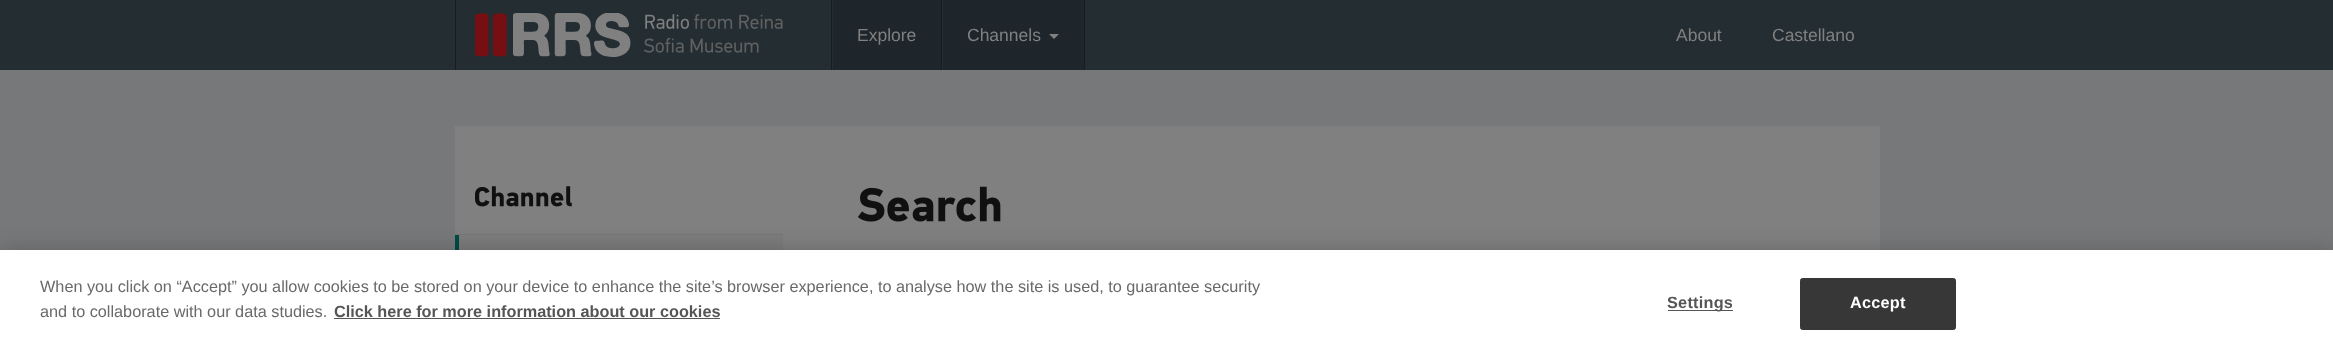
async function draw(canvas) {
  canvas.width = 2333;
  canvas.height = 352;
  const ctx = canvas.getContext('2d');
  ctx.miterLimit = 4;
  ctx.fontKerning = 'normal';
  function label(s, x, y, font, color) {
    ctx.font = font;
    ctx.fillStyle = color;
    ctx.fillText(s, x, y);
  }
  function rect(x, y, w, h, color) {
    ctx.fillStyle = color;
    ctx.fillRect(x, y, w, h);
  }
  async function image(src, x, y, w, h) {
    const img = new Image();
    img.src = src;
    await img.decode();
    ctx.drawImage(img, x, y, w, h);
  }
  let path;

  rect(0, 0, 2333, 352, '#767879');
  rect(0, 0, 2333, 70, '#232d32');
  rect(455, 0, 1, 70, '#161d20');
  await image('assets/img1.png', 475, 13, 156, 44);
  await image('assets/img2.png', 645, 14, 44, 15);
  await image('assets/img3.png', 694, 14, 89, 15);
  await image('assets/img4.png', 643, 37, 116, 16);
  rect(833, 0, 108, 70, '#1e262b');
  rect(941, 0, 1, 70, '#161d20');
  rect(831, 0, 1, 70, '#161d20');
  label('Explore', 857, 41, '17.5px Liberation Sans', '#808080');
  rect(943, 0, 141, 70, '#1e262b');
  rect(1084, 0, 1, 70, '#161d20');
  label('Channels', 967, 41, '17.5px Liberation Sans', '#808080');
  path = new Path2D('M1049 34H1059L1054 39Z');
  ctx.fill(path);
  label('About', 1676, 41, '17.5px Liberation Sans', '#808080');
  label('Castellano', 1772, 41, '17.5px Liberation Sans', '#808080');
  rect(455, 126, 1425, 124, '#808080');
  rect(459, 235, 324, 15, '#7c7c7c');
  await image('assets/img5.png', 475, 186, 97, 21);
  rect(455, 234, 328, 1, '#767676');
  rect(455, 235, 4, 15, '#004b44');
  await image('assets/img6.png', 858, 186, 143, 36);
  ctx.fillStyle = '#00000033';
  ctx.filter = 'blur(11px)';
  ctx.beginPath();
  ctx.rect(0, 250, 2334, 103);
  ctx.fill();
  ctx.filter = 'none';
  rect(0, 250, 2333, 102, '#fff');
  label('When you click on “Accept” you allow cookies to be stored on your device to enhance the site’s browser experience, to analyse how the site is used, to guarantee security', 40, 292, '16.25px Liberation Sans', '#696969');
  label('and to collaborate with our data studies.', 40, 317, '16.25px Liberation Sans', '#696969');
  label('Click here for more information about our cookies', 334, 317, 'bold 16.25px Liberation Sans', '#555');
  rect(334, 318, 386, 1, '#555');
  rect(1668, 310, 65, 1, '#555');
  ctx.letterSpacing = '0.25px';
  label('Settings', 1667, 308, 'bold 16.25px Liberation Sans', '#555');
  ctx.fillStyle = '#373737';
  ctx.beginPath();
  ctx.roundRect(1800.5, 278.5, 155, 51, 2);
  ctx.fill();
  ctx.strokeStyle = '#373737';
  ctx.stroke();
  label('Accept', 1850, 308, 'bold 16.25px Liberation Sans', '#fff');
}

draw(document.querySelector('canvas'));
